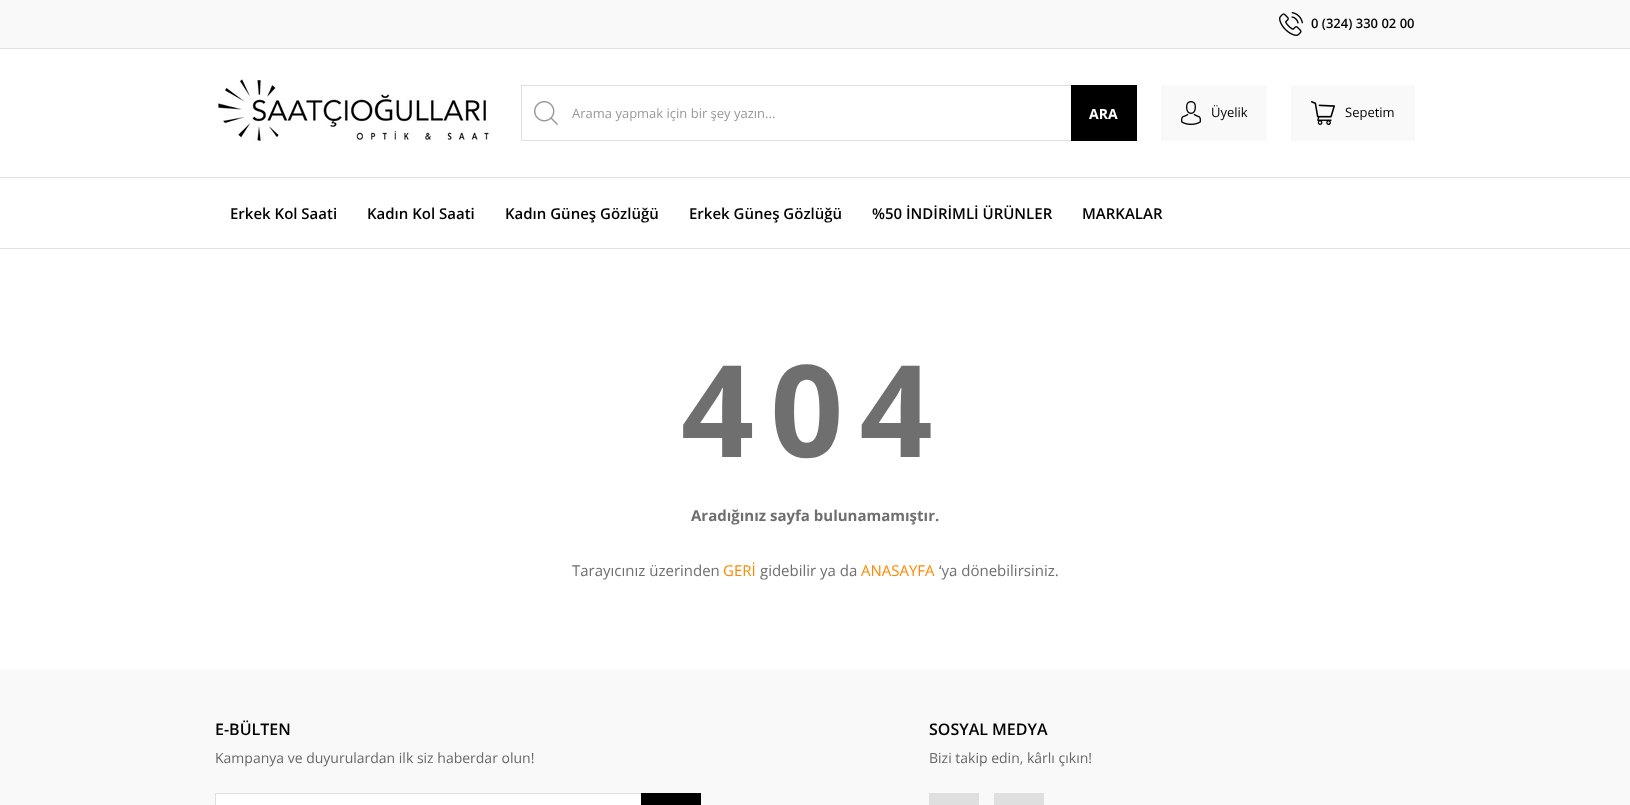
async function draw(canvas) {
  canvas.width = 1630;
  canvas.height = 805;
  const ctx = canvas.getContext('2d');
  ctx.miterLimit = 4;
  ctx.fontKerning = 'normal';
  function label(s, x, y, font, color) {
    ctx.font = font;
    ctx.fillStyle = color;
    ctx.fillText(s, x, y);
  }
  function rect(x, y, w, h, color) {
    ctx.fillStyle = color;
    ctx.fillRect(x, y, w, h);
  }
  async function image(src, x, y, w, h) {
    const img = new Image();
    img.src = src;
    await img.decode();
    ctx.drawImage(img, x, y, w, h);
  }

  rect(0, 0, 1630, 805, '#fff');
  rect(0, 0, 1630, 48, '#f9f9f9');
  rect(0, 48, 1630, 1, '#e2e2e2');
  await image('assets/img1.png', 1279, 12, 24, 24);
  label('0 (324) 330 02 00', 1311, 28, '600 13px Open Sans', '#000');
  await image('assets/img2.png', 218, 79, 271, 62);
  ctx.strokeStyle = '#dfdfdf';
  ctx.strokeRect(521.5, 85.5, 615, 55);
  await image('assets/img3.png', 534, 101, 24, 24);
  label('Arama yapmak için bir şey yazın...', 572, 118, '13px Open Sans', '#999');
  rect(1071, 85, 66, 56, '#000');
  label('ARA', 1089, 119, 'bold 14px Open Sans', '#fff');
  rect(1161, 85, 106, 56, '#f9f9f9');
  await image('assets/img4.png', 1181, 101, 20, 24);
  label('Üyelik', 1211, 117, '13px Open Sans', '#000');
  rect(1291, 85, 124, 56, '#f9f9f9');
  await image('assets/img5.png', 1311, 101, 24, 24);
  label('Sepetim', 1345, 117, '13px Open Sans', '#000');
  rect(0, 177, 1630, 1, '#e2e2e2');
  rect(0, 248, 1630, 1, '#e2e2e2');
  label('Erkek Kol Saati', 230, 219, '600 15px Open Sans', '#000');
  label('Kadın Kol Saati', 367, 219, '600 15px Open Sans', '#000');
  label('Kadın Güneş Gözlüğü', 505, 219, '600 15px Open Sans', '#000');
  label('Erkek Güneş Gözlüğü', 689, 219, '600 15px Open Sans', '#000');
  label('%50 İNDİRİMLİ ÜRÜNLER', 872, 219, '600 15px Open Sans', '#000');
  label('MARKALAR', 1082, 219, '600 15px Open Sans', '#000');
  ctx.letterSpacing = '16px';
  label('404', 681, 457, 'bold 128px Open Sans', '#6f6f6f');
  ctx.letterSpacing = '0px';
  label('Aradığınız sayfa bulunamamıştır.', 691, 521, 'bold 15px Open Sans', '#6f6f6f');
  label('Tarayıcınız üzerinden', 572, 576, '15px Open Sans', '#6f6f6f');
  label('GERİ', 723, 576, '15px Open Sans', '#f80');
  label('gidebilir ya da', 760, 576, '15px Open Sans', '#6f6f6f');
  label('ANASAYFA', 861, 576, '15px Open Sans', '#f80');
  label('‘ya dönebilirsiniz.', 939, 576, '15px Open Sans', '#6f6f6f');
  rect(0, 669, 1630, 136, '#f9f9f9');
  label('E-BÜLTEN', 215, 735, '600 16px Open Sans', '#000');
  label('Kampanya ve duyurulardan ilk siz haberdar olun!', 215, 763, '14px Open Sans', '#686868');
  rect(216, 794, 425, 11, '#fff');
  ctx.strokeRect(215.5, 793.5, 485, 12);
  rect(641, 793, 60, 12, '#000');
  label('SOSYAL MEDYA', 929, 735, '600 16px Open Sans', '#000');
  label('Bizi takip edin, kârlı çıkın!', 929, 763, '14px Open Sans', '#686868');
  rect(929, 793, 50, 12, '#dfdfdf');
  rect(994, 793, 50, 12, '#dfdfdf');
}

draw(document.querySelector('canvas'));
